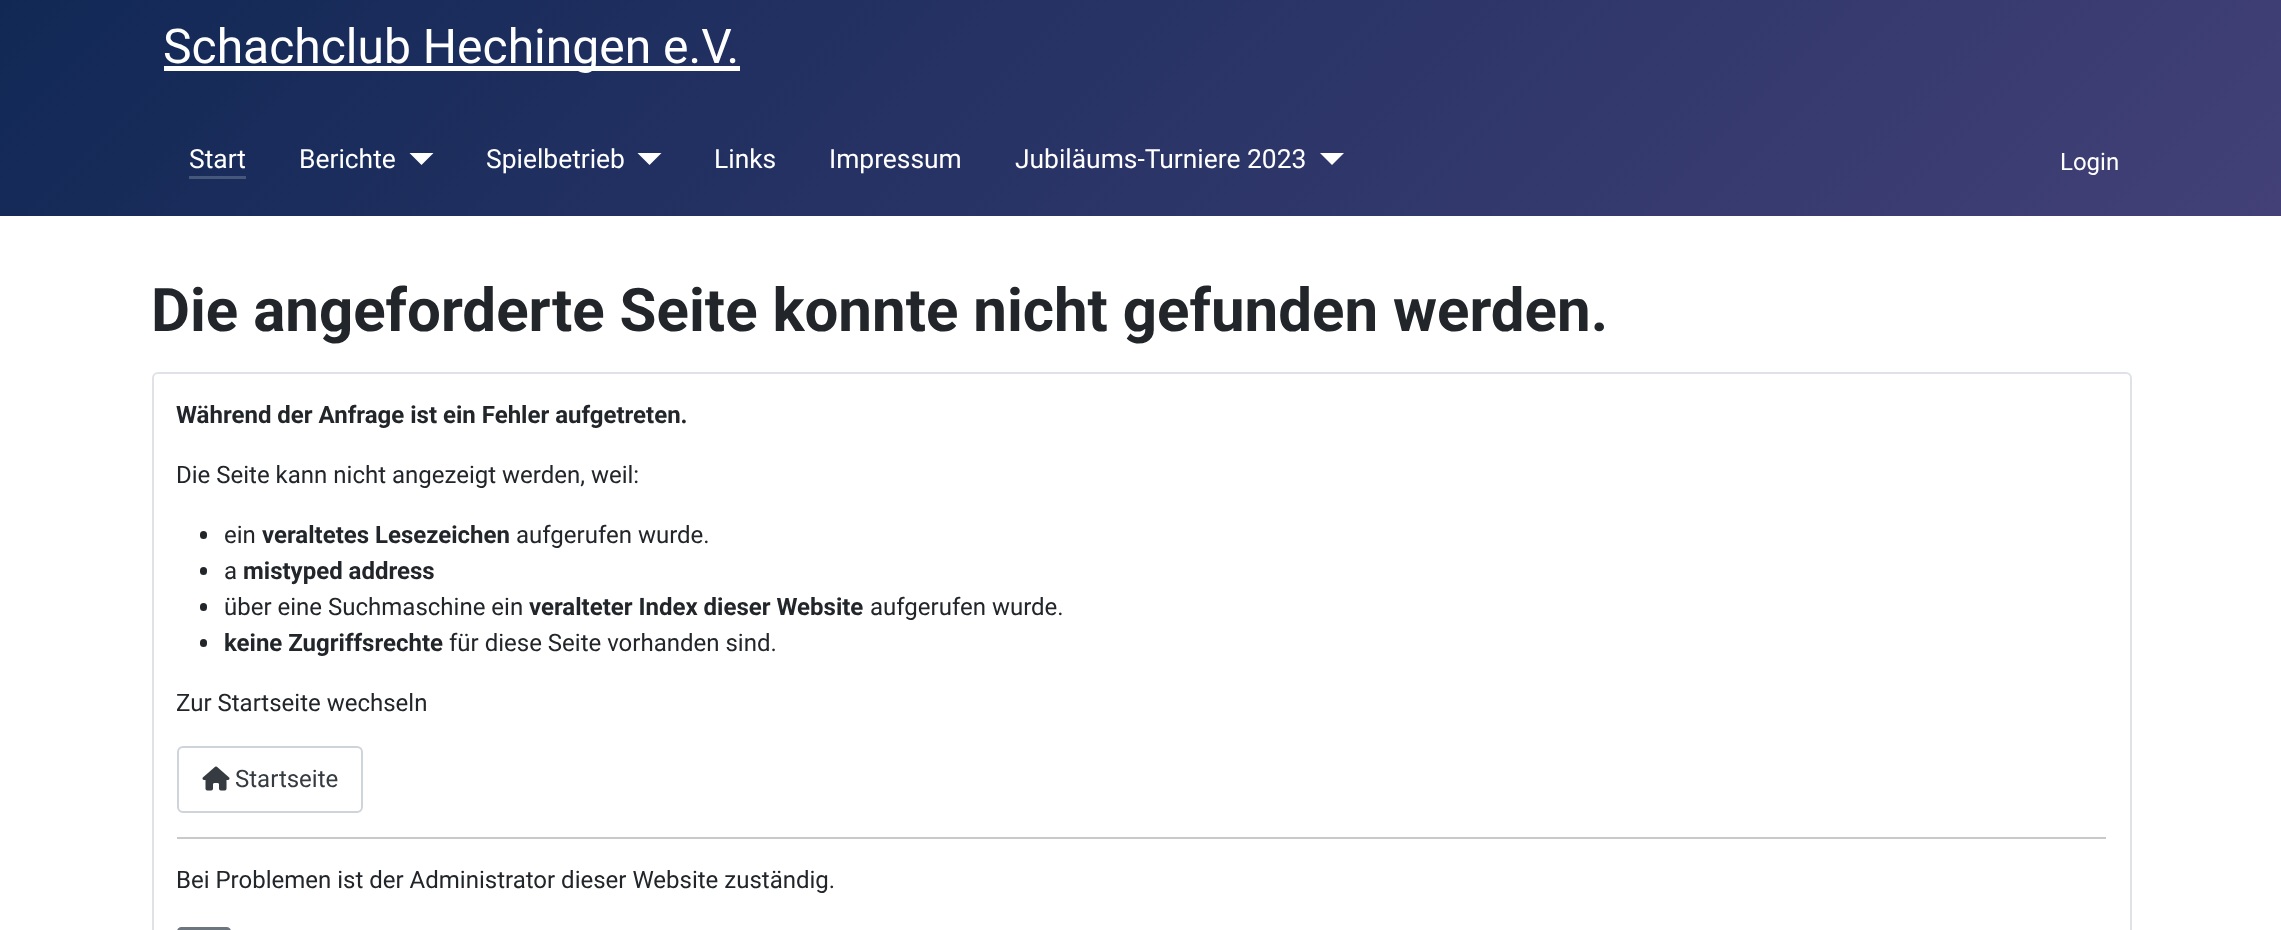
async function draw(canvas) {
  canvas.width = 2281;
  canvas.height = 930;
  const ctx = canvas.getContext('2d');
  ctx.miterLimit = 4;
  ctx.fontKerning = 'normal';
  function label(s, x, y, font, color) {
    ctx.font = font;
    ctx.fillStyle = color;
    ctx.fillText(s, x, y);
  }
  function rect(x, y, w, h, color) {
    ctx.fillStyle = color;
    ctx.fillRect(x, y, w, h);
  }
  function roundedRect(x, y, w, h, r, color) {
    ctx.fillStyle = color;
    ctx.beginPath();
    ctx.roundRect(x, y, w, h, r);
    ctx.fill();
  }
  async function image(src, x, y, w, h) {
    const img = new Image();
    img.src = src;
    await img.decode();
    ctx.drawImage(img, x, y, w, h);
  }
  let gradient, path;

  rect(0, 0, 2281, 930, '#fff');
  gradient = ctx.createLinearGradient(514, -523, 1767, 730);
  gradient.addColorStop(0, '#112855');
  gradient.addColorStop(1, '#424077');
  ctx.fillStyle = gradient;
  ctx.fillRect(0, 0, 2281, 216);
  rect(164, 66, 576, 5, '#fff');
  label('Schachclub Hechingen e.V.', 163, 63, '48px Roboto', '#fff');
  label('Start', 189, 168, '26.4px Roboto', '#fff');
  rect(189, 176, 57, 3, '#47567b');
  label('Berichte', 299, 168, '26.4px Roboto', '#fff');
  path = new Path2D('M409.5 153H433.5L421.5 165Z');
  ctx.fill(path);
  label('Spielbetrieb', 486, 168, '26.4px Roboto', '#fff');
  path = new Path2D('M637.5 153H661.5L649.5 165Z');
  ctx.fill(path);
  label('Links', 714, 168, '26.4px Roboto', '#fff');
  label('Impressum', 829, 168, '26.4px Roboto', '#fff');
  label('Jubiläums-Turniere 2023', 1015, 168, '26.4px Roboto', '#fff');
  path = new Path2D('M1320 153H1344L1332 165Z');
  ctx.fill(path);
  label('Login', 2060, 170, '24px Roboto', '#fff');
  label('Die angeforderte Seite konnte nicht gefunden werden.', 151, 331, 'bold 60px Roboto', '#22262a');
  ctx.beginPath();
  ctx.roundRect(153, 373, 1978, 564, 5);
  ctx.strokeStyle = '#dfe3e7';
  ctx.lineWidth = 2;
  ctx.stroke();
  label('Während der Anfrage ist ein Fehler aufgetreten.', 176, 423, 'bold 24px Roboto', '#22262a');
  label('Die Seite kann nicht angezeigt werden, weil:', 176, 483, '24px Roboto', '#22262a');
  roundedRect(200, 531, 7, 8, 3.5, '#22262a');
  label('ein', 224, 543, '24px Roboto', '#22262a');
  label('veraltetes Lesezeichen', 262, 543, 'bold 24px Roboto', '#22262a');
  label('aufgerufen wurde.', 516, 543, '24px Roboto', '#22262a');
  roundedRect(200, 567, 7, 8, 3.5, '#22262a');
  label('a', 224, 579, '24px Roboto', '#22262a');
  label('mistyped address', 243, 579, 'bold 24px Roboto', '#22262a');
  roundedRect(200, 603, 7, 8, 3.5, '#22262a');
  label('über eine Suchmaschine ein', 224, 615, '24px Roboto', '#22262a');
  label('veralteter Index dieser Website', 529, 615, 'bold 24px Roboto', '#22262a');
  label('aufgerufen wurde.', 870, 615, '24px Roboto', '#22262a');
  roundedRect(200, 639, 7, 8, 3.5, '#22262a');
  label('keine Zugriffsrechte', 224, 651, 'bold 24px Roboto', '#22262a');
  label('für diese Seite vorhanden sind.', 449, 651, '24px Roboto', '#22262a');
  label('Zur Startseite wechseln', 176, 711, '24px Roboto', '#22262a');
  ctx.beginPath();
  ctx.roundRect(178, 747, 184, 65, 5);
  ctx.strokeStyle = '#ced4da';
  ctx.stroke();
  await image('assets/img1.png', 202, 766, 28, 25);
  label('Startseite', 235, 787, '24px Roboto', '#353b41');
  rect(177, 837, 1929, 2, '#c8c9ca');
  label('Bei Problemen ist der Administrator dieser Website zuständig.', 176, 888, '24px Roboto', '#22262a');
  roundedRect(177, 927, 54, 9, 6, '#6d757e');
}

draw(document.querySelector('canvas'));
